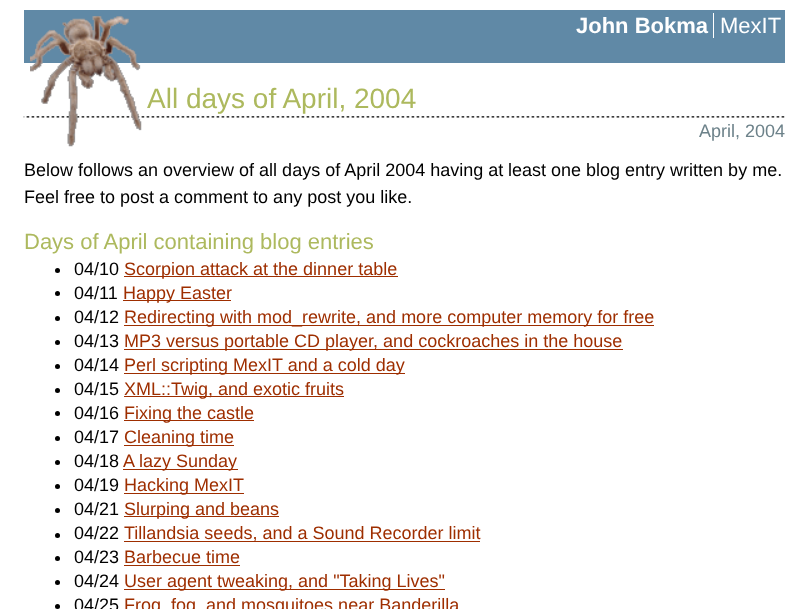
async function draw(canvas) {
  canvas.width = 808;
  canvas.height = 609;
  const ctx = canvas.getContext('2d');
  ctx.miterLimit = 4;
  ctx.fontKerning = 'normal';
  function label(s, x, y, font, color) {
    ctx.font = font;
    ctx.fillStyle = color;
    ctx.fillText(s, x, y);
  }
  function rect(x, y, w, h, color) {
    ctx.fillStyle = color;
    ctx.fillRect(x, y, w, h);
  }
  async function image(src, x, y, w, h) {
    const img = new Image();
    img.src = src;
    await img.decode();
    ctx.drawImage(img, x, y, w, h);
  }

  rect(0, 0, 808, 609, '#fff');
  rect(24, 10, 761, 53, '#6089a6');
  await image('assets/img2.png', 23, 116, 762, 2);
  await image('assets/img1.png', 30, 16, 112, 131);
  label('John Bokma', 576, 33, 'bold 22px Liberation Sans', '#fff');
  rect(713, 13, 1, 25, '#fff');
  label('MexIT', 720, 33, '22px Liberation Sans', '#fff');
  label('All days of April, 2004', 147, 108, '28px Liberation Sans', '#adb95e');
  label('April, 2004', 699, 137, '18px Liberation Sans', '#6d828a');
  label('Below follows an overview of all days of April 2004 having at', 24, 176, '18px Liberation Sans', '#000');
  label('least one blog entry written by me.', 508, 176, '18px Liberation Sans', '#000');
  label('Feel free to post a comment to any post you like.', 24, 203, '18px Liberation Sans', '#000');
  label('Days of April containing blog entries', 24, 249, '22px Liberation Sans', '#adb95e');
  ctx.fillStyle = '#000';
  ctx.beginPath();
  ctx.arc(57.5, 270.5, 2.5, 0, 2 * Math.PI);
  ctx.fill();
  label('04/10', 74, 275, '18px Liberation Sans', '#000');
  rect(124, 276, 274, 1, '#9e2e00');
  label('Scorpion attack at the dinner table', 124, 275, '18px Liberation Sans', '#9e2e00');
  ctx.fillStyle = '#000';
  ctx.beginPath();
  ctx.arc(57.5, 293.5, 2.5, 0, 2 * Math.PI);
  ctx.fill();
  label('04/11', 74, 299, '18px Liberation Sans', '#000');
  rect(123, 300, 108, 1, '#9e2e00');
  label('Happy Easter', 123, 299, '18px Liberation Sans', '#9e2e00');
  ctx.fillStyle = '#000';
  ctx.beginPath();
  ctx.arc(57.5, 318.5, 2.5, 0, 2 * Math.PI);
  ctx.fill();
  label('04/12', 74, 323, '18px Liberation Sans', '#000');
  rect(124, 325, 530, 1, '#9e2e00');
  label('Redirecting with mod_rewrite, and more computer memory for free', 124, 323, '18px Liberation Sans', '#9e2e00');
  ctx.fillStyle = '#000';
  ctx.beginPath();
  ctx.arc(57.5, 342.5, 2.5, 0, 2 * Math.PI);
  ctx.fill();
  label('04/13', 74, 347, '18px Liberation Sans', '#000');
  rect(124, 349, 499, 1, '#9e2e00');
  label('MP3 versus portable CD player, and cockroaches in the house', 124, 347, '18px Liberation Sans', '#9e2e00');
  ctx.fillStyle = '#000';
  ctx.beginPath();
  ctx.arc(57.5, 366.5, 2.5, 0, 2 * Math.PI);
  ctx.fill();
  label('04/14', 74, 371, '18px Liberation Sans', '#000');
  rect(124, 373, 281, 1, '#9e2e00');
  label('Perl scripting MexIT and a cold day', 124, 371, '18px Liberation Sans', '#9e2e00');
  ctx.fillStyle = '#000';
  ctx.beginPath();
  ctx.arc(57.5, 390.5, 2.5, 0, 2 * Math.PI);
  ctx.fill();
  label('04/15', 74, 395, '18px Liberation Sans', '#000');
  rect(124, 396, 220, 1, '#9e2e00');
  label('XML::Twig, and exotic fruits', 124, 395, '18px Liberation Sans', '#9e2e00');
  ctx.fillStyle = '#000';
  ctx.beginPath();
  ctx.arc(57.5, 413.5, 2.5, 0, 2 * Math.PI);
  ctx.fill();
  label('04/16', 74, 419, '18px Liberation Sans', '#000');
  rect(124, 420, 130, 1, '#9e2e00');
  label('Fixing the castle', 124, 419, '18px Liberation Sans', '#9e2e00');
  ctx.fillStyle = '#000';
  ctx.beginPath();
  ctx.arc(57.5, 438.5, 2.5, 0, 2 * Math.PI);
  ctx.fill();
  label('04/17', 74, 443, '18px Liberation Sans', '#000');
  rect(124, 445, 110, 1, '#9e2e00');
  label('Cleaning time', 124, 443, '18px Liberation Sans', '#9e2e00');
  ctx.fillStyle = '#000';
  ctx.beginPath();
  ctx.arc(57.5, 462.5, 2.5, 0, 2 * Math.PI);
  ctx.fill();
  label('04/18', 74, 467, '18px Liberation Sans', '#000');
  rect(123, 469, 115, 1, '#9e2e00');
  label('A lazy Sunday', 123, 467, '18px Liberation Sans', '#9e2e00');
  ctx.fillStyle = '#000';
  ctx.beginPath();
  ctx.arc(57.5, 486.5, 2.5, 0, 2 * Math.PI);
  ctx.fill();
  label('04/19', 74, 491, '18px Liberation Sans', '#000');
  rect(124, 493, 120, 1, '#9e2e00');
  label('Hacking MexIT', 124, 491, '18px Liberation Sans', '#9e2e00');
  ctx.fillStyle = '#000';
  ctx.beginPath();
  ctx.arc(57.5, 510.5, 2.5, 0, 2 * Math.PI);
  ctx.fill();
  label('04/21', 74, 515, '18px Liberation Sans', '#000');
  rect(124, 516, 155, 1, '#9e2e00');
  label('Slurping and beans', 124, 515, '18px Liberation Sans', '#9e2e00');
  ctx.fillStyle = '#000';
  ctx.beginPath();
  ctx.arc(57.5, 535.5, 2.5, 0, 2 * Math.PI);
  ctx.fill();
  label('04/22', 74, 539, '18px Liberation Sans', '#000');
  rect(124, 541, 356, 1, '#9e2e00');
  label('Tillandsia seeds, and a Sound Recorder limit', 124, 539, '18px Liberation Sans', '#9e2e00');
  ctx.fillStyle = '#000';
  ctx.beginPath();
  ctx.arc(57.5, 558.5, 2.5, 0, 2 * Math.PI);
  ctx.fill();
  label('04/23', 74, 563, '18px Liberation Sans', '#000');
  label('Barbecue time', 124, 563, '18px Liberation Sans', '#9e2e00');
  rect(124, 565, 116, 1, '#9e2e00');
  ctx.fillStyle = '#000';
  ctx.beginPath();
  ctx.arc(57.5, 582.5, 2.5, 0, 2 * Math.PI);
  ctx.fill();
  label('04/24', 74, 587, '18px Liberation Sans', '#000');
  rect(124, 589, 321, 1, '#9e2e00');
  label('User agent tweaking, and "Taking Lives"', 124, 587, '18px Liberation Sans', '#9e2e00');
  ctx.fillStyle = '#000';
  ctx.beginPath();
  ctx.arc(57.5, 606.5, 2.5, 0, 2 * Math.PI);
  ctx.fill();
  label('04/25', 74, 611, '18px Liberation Sans', '#000');
  label('Frog, fog, and mosquitoes near Banderilla', 124, 611, '18px Liberation Sans', '#9e2e00');
}

draw(document.querySelector('canvas'));
